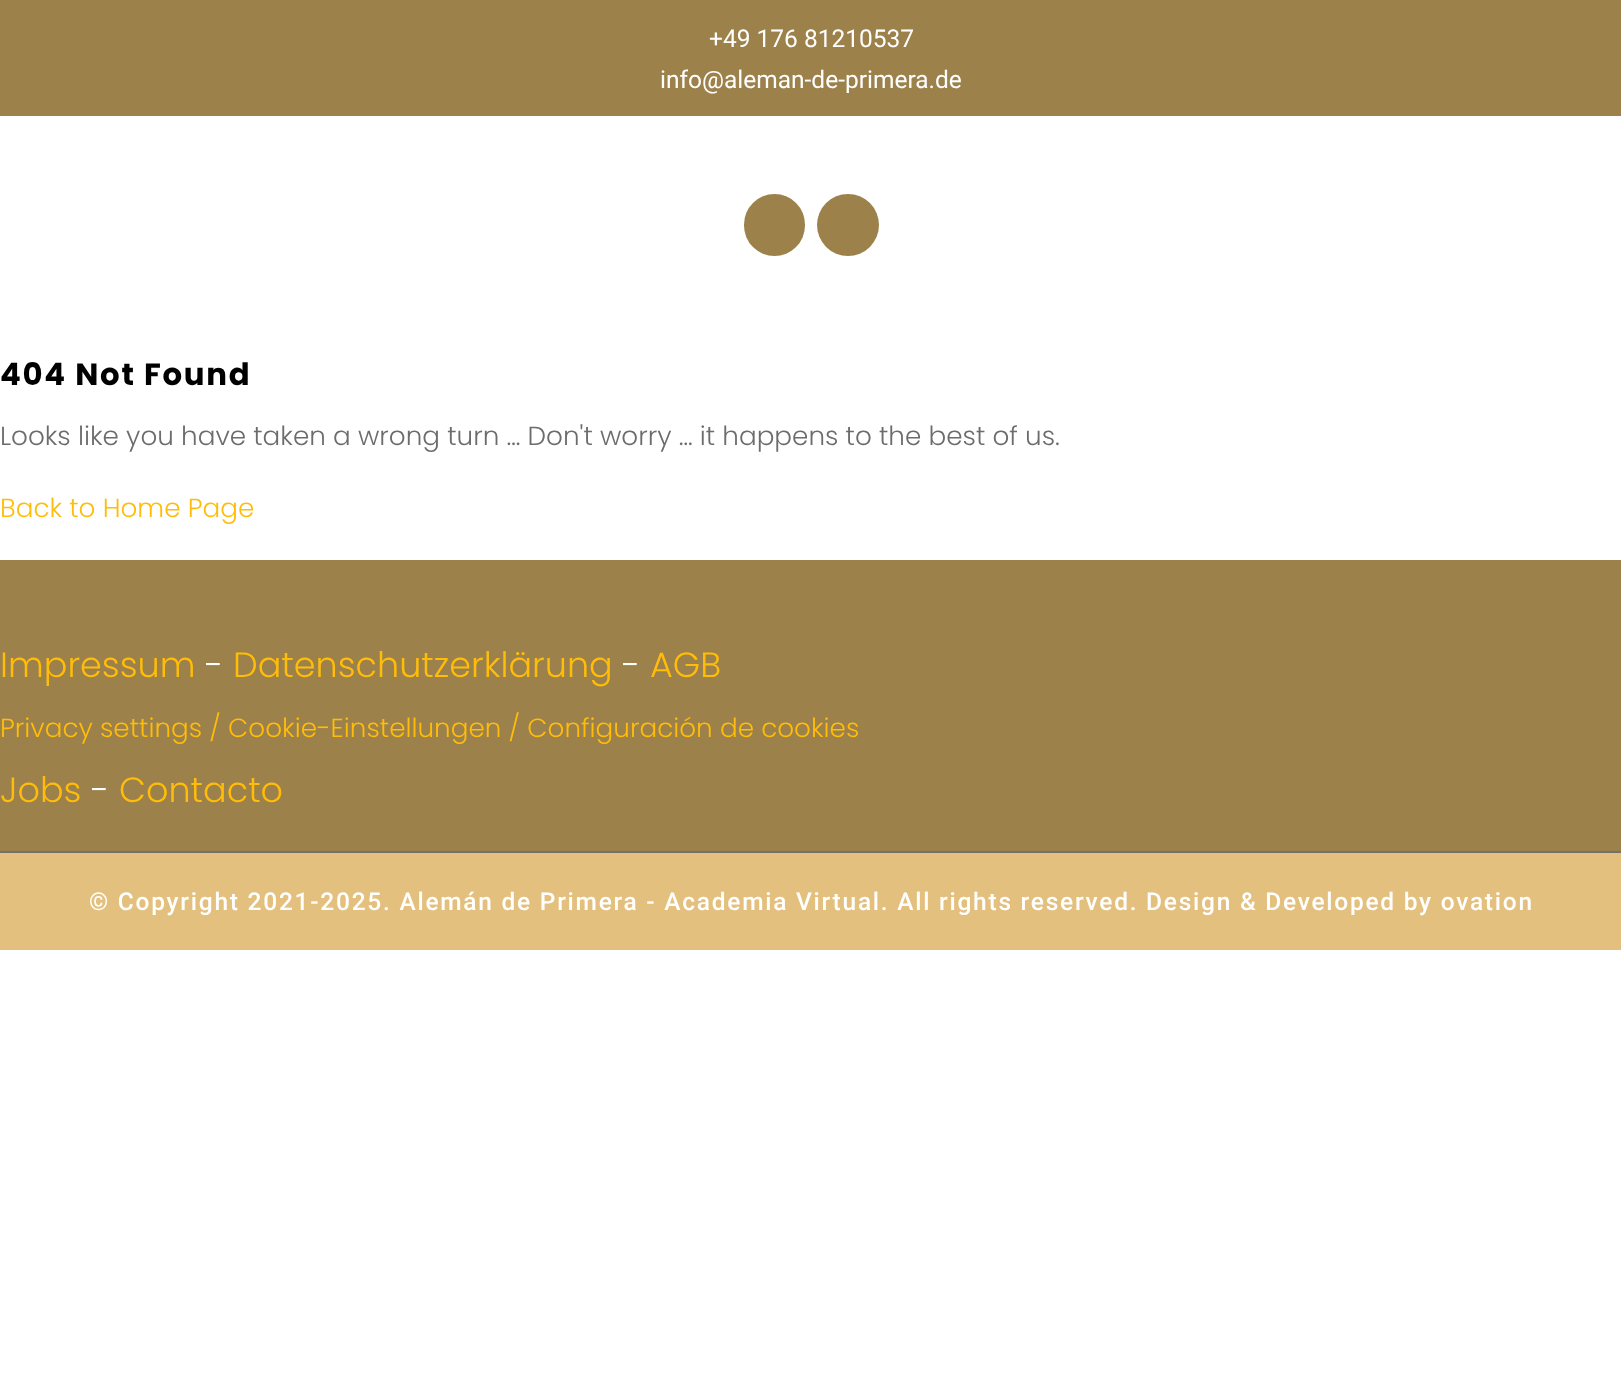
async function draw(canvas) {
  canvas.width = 1621;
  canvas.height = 1389;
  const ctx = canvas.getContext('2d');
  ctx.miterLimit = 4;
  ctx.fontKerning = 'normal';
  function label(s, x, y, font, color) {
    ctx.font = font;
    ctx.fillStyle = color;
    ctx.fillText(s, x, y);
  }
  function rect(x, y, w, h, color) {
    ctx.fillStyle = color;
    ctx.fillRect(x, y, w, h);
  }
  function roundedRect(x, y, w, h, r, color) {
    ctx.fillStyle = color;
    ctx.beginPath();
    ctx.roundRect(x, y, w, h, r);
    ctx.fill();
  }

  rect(0, 0, 1621, 1389, '#fff');
  rect(0, 0, 1621, 116, '#9d814a');
  label('+49 176 81210537', 709, 47, '24.5px Roboto', '#fff');
  label('info@aleman-de-primera.de', 660, 88, '24.5px Roboto', '#fff');
  roundedRect(744, 194, 61, 62, 30.5, '#9d814a');
  ctx.beginPath();
  ctx.arc(848, 225, 31, 0, 2 * Math.PI);
  ctx.fill();
  ctx.letterSpacing = '1.75px';
  label('404 Not Found', 0, 385, 'bold 30.75px Poppins', '#000');
  ctx.letterSpacing = '0px';
  label('Looks like you have taken a wrong turn … Don\'t worry … it happens to the best of us.', 0, 445, '300 26.25px Poppins', '#6c6c6c');
  label('Back to Home Page', 0, 517, '300 26.25px Poppins', '#ffbd0a');
  rect(0, 560, 1621, 291, '#9d814a');
  label('Impressum', 0, 677, '300 35px Poppins', '#ffbd0a');
  label('-', 205, 677, '300 35px Poppins', '#fff');
  label('Datenschutzerklärung', 233, 677, '300 35px Poppins', '#ffbd0a');
  label('-', 622, 677, '300 35px Poppins', '#fff');
  label('AGB', 650, 677, '300 35px Poppins', '#ffbd0a');
  label('Privacy settings / Cookie-Einstellungen / Configuración de cookies', 0, 737, '300 26.25px Poppins', '#ffbd0a');
  label('Jobs', 0, 802, '300 35px Poppins', '#ffbd0a');
  label('-', 91, 802, '300 35px Poppins', '#fff');
  label('Contacto', 119, 802, '300 35px Poppins', '#ffbd0a');
  rect(0, 853, 1621, 97, '#e4c07e');
  rect(0, 851, 1621, 2, '#757070');
  ctx.letterSpacing = '1.75px';
  label('© Copyright 2021-2025. Alemán de Primera - Academia Virtual. All rights reserved. Design & Developed by ovation', 89, 910, '500 24.5px Roboto', '#fff');
}

draw(document.querySelector('canvas'));
